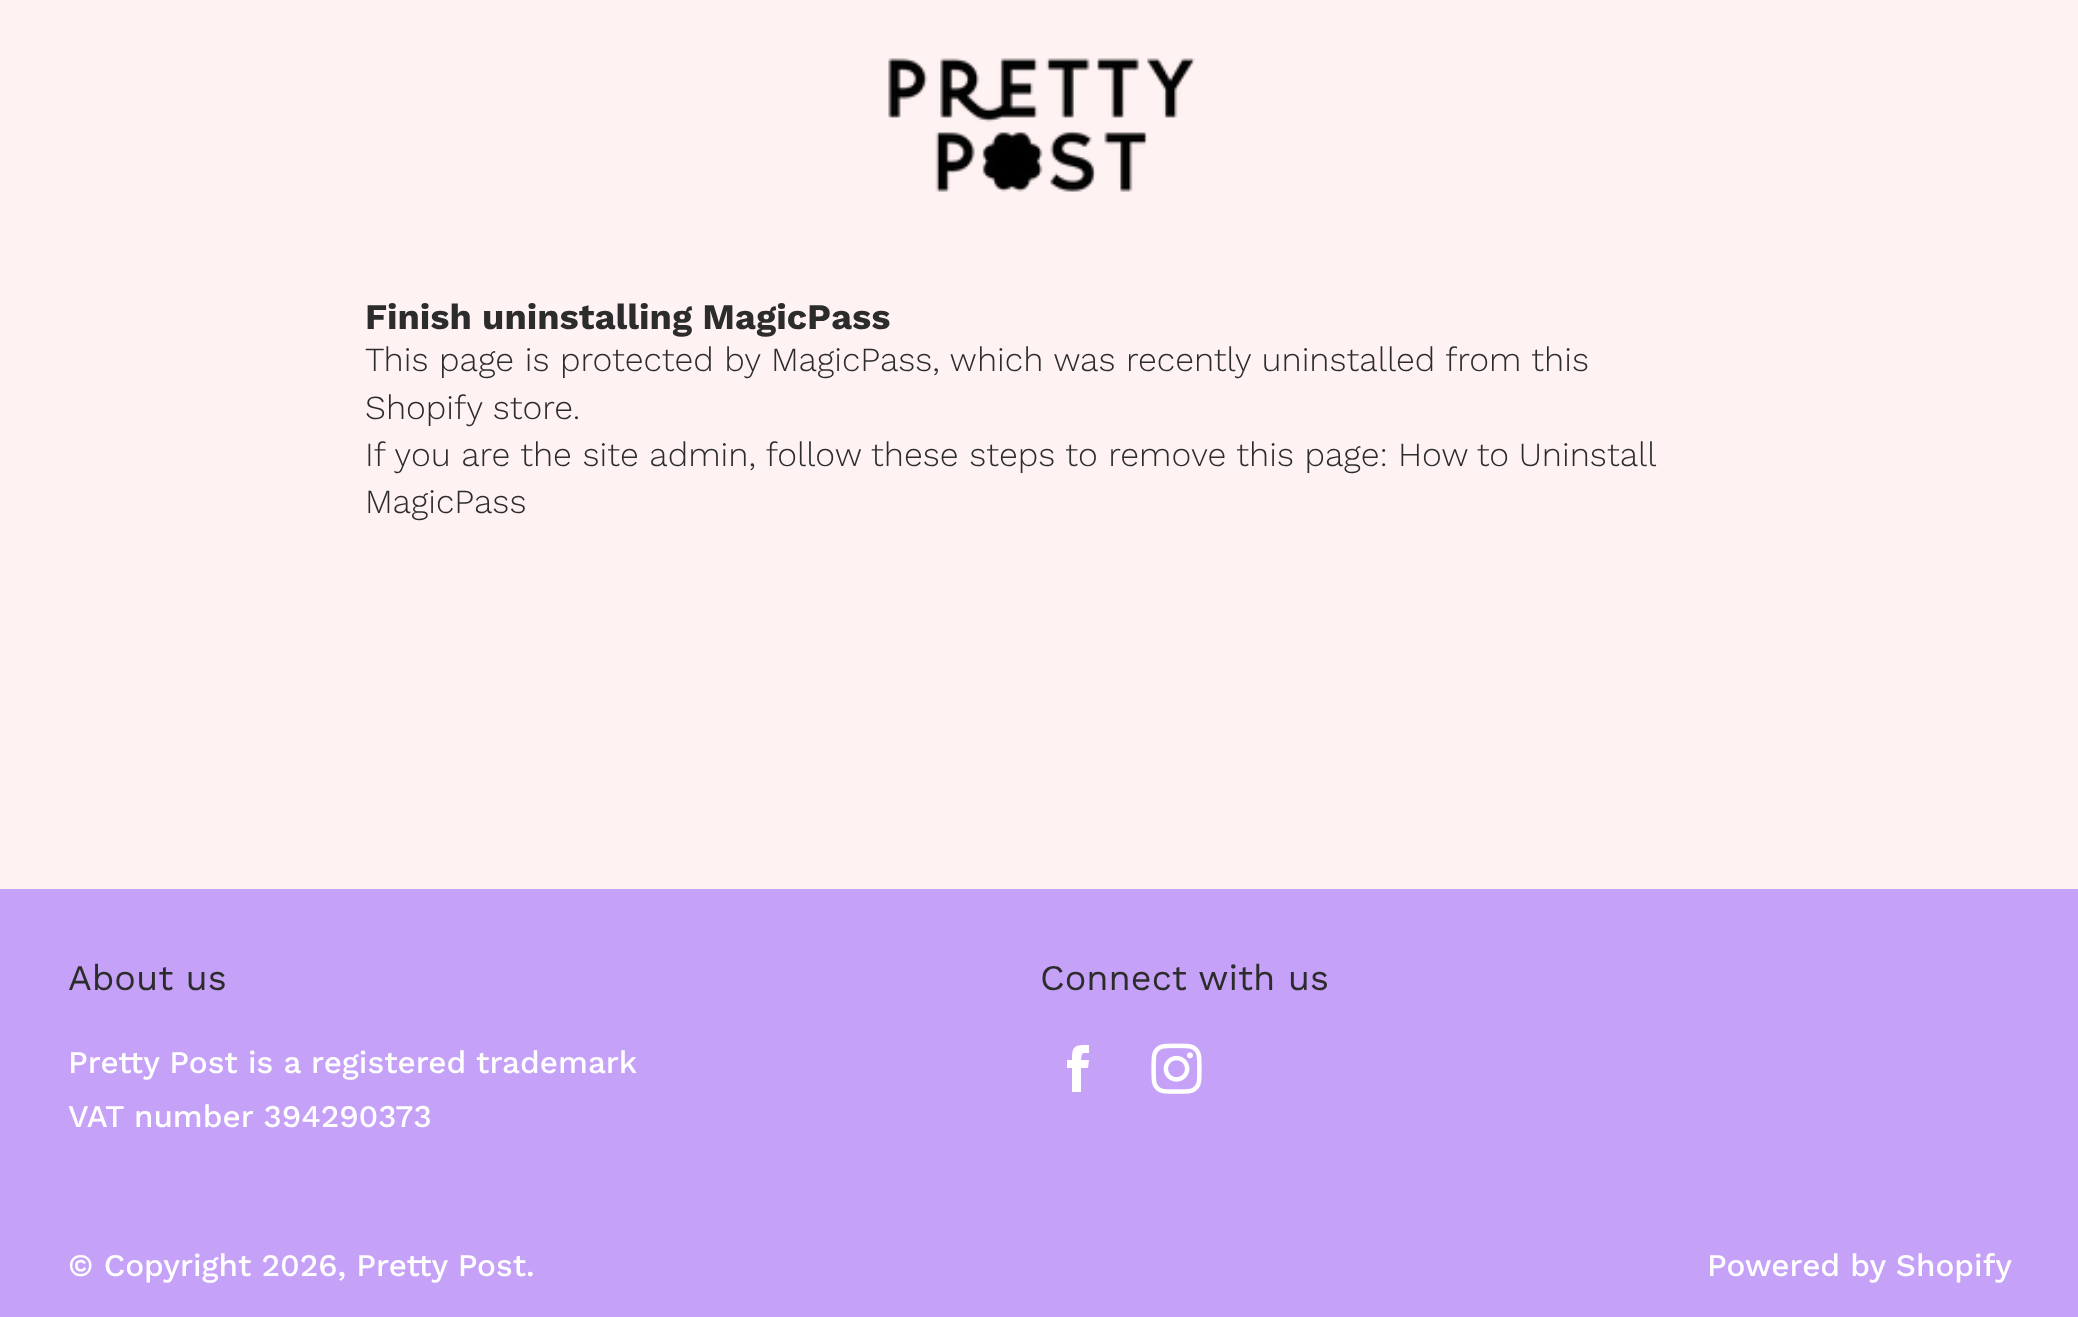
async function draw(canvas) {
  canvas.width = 2078;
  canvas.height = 1317;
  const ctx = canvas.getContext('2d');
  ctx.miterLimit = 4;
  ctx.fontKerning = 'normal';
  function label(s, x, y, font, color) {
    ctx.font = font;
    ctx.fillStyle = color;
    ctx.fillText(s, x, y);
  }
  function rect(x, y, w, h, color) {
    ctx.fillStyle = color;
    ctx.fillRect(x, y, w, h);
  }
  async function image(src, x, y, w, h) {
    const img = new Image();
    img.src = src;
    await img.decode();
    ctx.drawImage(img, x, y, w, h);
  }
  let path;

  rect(0, 0, 2078, 1317, '#fff2f3');
  await image('assets/img1.png', 888, 58, 307, 134);
  label('Finish uninstalling MagicPass', 365, 329, 'bold 36px Work Sans', '#2c2c2c');
  label('This page is protected by MagicPass, which was recently uninstalled from this', 365, 371, '300 33.75px Work Sans', '#2c2c2c');
  label('Shopify store.', 365, 419, '300 33.75px Work Sans', '#2c2c2c');
  label('If you are the site admin, follow these steps to remove this page:', 365, 466, '300 33.75px Work Sans', '#2c2c2c');
  ctx.wordSpacing = '-1px';
  label('How to Uninstall', 1398, 466, '300 33.75px Work Sans', '#2c2c2c');
  ctx.wordSpacing = '0px';
  label('MagicPass', 365, 513, '300 33.75px Work Sans', '#2c2c2c');
  rect(0, 889, 2078, 428, '#c5a1f7');
  label('About us', 68, 990, '36px Work Sans', '#2c2c2c');
  label('Pretty Post is a registered trademark', 68, 1073, '500 31.5px Work Sans', '#fff');
  label('VAT number 394290373', 68, 1127, '500 31.5px Work Sans', '#fff');
  label('Connect with us', 1040, 990, '36px Work Sans', '#2c2c2c');
  ctx.fillStyle = '#fff';
  path = new Path2D('M1081 1092V1068H1088L1089 1060H1081C1082 1053 1081 1053 1089 1053V1045C1075 1045 1072 1045 1072 1060H1067V1068H1072V1092Z');
  ctx.fill(path);
  await image('assets/img2.png', 1151, 1043, 51, 51);
  label('© Copyright 2026, Pretty Post.', 68, 1276, '500 31.5px Work Sans', '#fff');
  label('Powered by Shopify', 1707, 1276, '500 31.5px Work Sans', '#fff');
}

draw(document.querySelector('canvas'));
